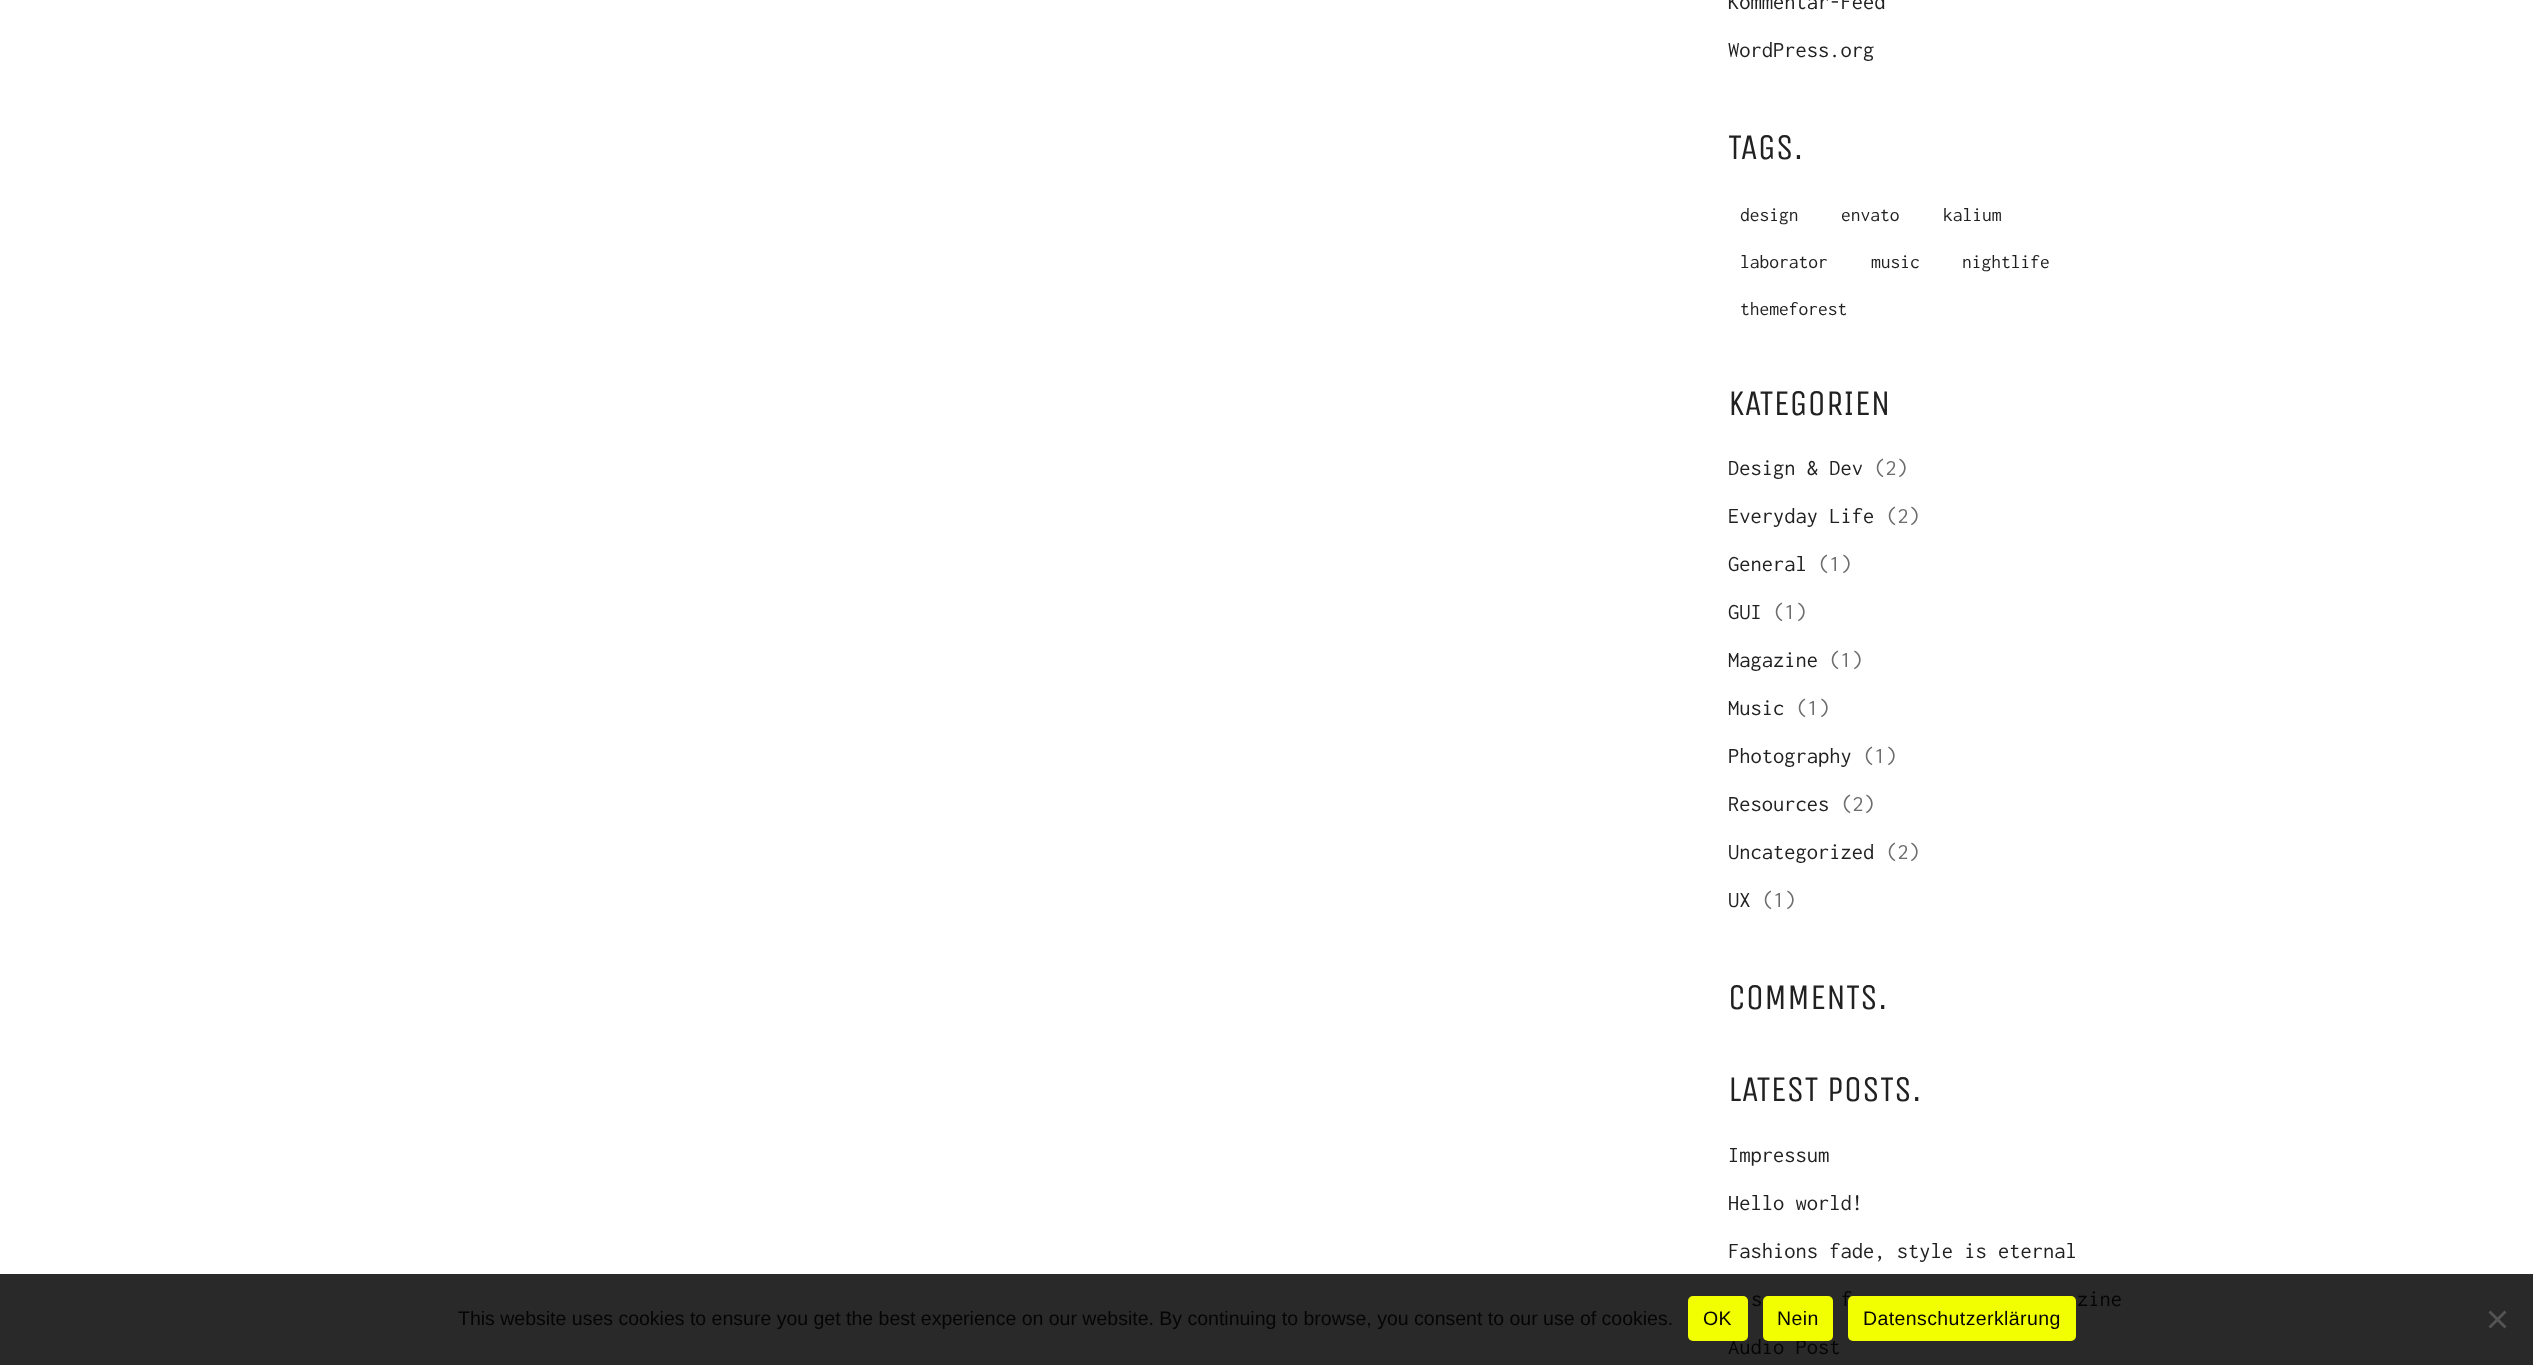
async function draw(canvas) {
  canvas.width = 2533;
  canvas.height = 1365;
  const ctx = canvas.getContext('2d');
  ctx.miterLimit = 4;
  ctx.fontKerning = 'normal';
  function label(s, x, y, font, color) {
    ctx.font = font;
    ctx.fillStyle = color;
    ctx.fillText(s, x, y);
  }
  function rect(x, y, w, h, color) {
    ctx.fillStyle = color;
    ctx.fillRect(x, y, w, h);
  }
  function roundedRect(x, y, w, h, r, color) {
    ctx.fillStyle = color;
    ctx.beginPath();
    ctx.roundRect(x, y, w, h, r);
    ctx.fill();
  }
  let path;

  rect(0, 0, 2533, 1365, '#fff');
  rect(0, 1274, 2533, 91, '#292929');
  label('Kommentar-Feed', 1728, 9, '22.5px Inconsolata', '#212121');
  label('WordPress.org', 1728, 57, '22.5px Inconsolata', '#212121');
  label('TAGS.', 1728, 159, '36px Unica One', '#212121');
  label('design', 1740, 221, '19.5px Inconsolata', '#212121');
  label('envato', 1841, 221, '19.5px Inconsolata', '#212121');
  label('kalium', 1943, 221, '19.5px Inconsolata', '#212121');
  label('laborator', 1740, 268, '19.5px Inconsolata', '#212121');
  label('music', 1871, 268, '19.5px Inconsolata', '#212121');
  label('nightlife', 1962, 268, '19.5px Inconsolata', '#212121');
  label('themeforest', 1740, 315, '19.5px Inconsolata', '#212121');
  label('KATEGORIEN', 1728, 415, '36px Unica One', '#212121');
  label('Design & Dev', 1728, 475, '22.5px Inconsolata', '#212121');
  label('(2)', 1874, 475, '22.5px Inconsolata', '#6d6d6d');
  label('Everyday Life', 1728, 523, '22.5px Inconsolata', '#212121');
  label('(2)', 1886, 523, '22.5px Inconsolata', '#6d6d6d');
  label('General', 1728, 571, '22.5px Inconsolata', '#212121');
  label('(1)', 1818, 571, '22.5px Inconsolata', '#6d6d6d');
  label('GUI', 1728, 619, '22.5px Inconsolata', '#212121');
  label('(1)', 1773, 619, '22.5px Inconsolata', '#6d6d6d');
  label('Magazine', 1728, 667, '22.5px Inconsolata', '#212121');
  label('(1)', 1829, 667, '22.5px Inconsolata', '#6d6d6d');
  label('Music', 1728, 715, '22.5px Inconsolata', '#212121');
  label('(1)', 1796, 715, '22.5px Inconsolata', '#6d6d6d');
  label('Photography', 1728, 763, '22.5px Inconsolata', '#212121');
  label('(1)', 1863, 763, '22.5px Inconsolata', '#6d6d6d');
  label('Resources', 1728, 811, '22.5px Inconsolata', '#212121');
  label('(2)', 1841, 811, '22.5px Inconsolata', '#6d6d6d');
  label('Uncategorized', 1728, 859, '22.5px Inconsolata', '#212121');
  label('(2)', 1886, 859, '22.5px Inconsolata', '#6d6d6d');
  label('UX', 1728, 907, '22.5px Inconsolata', '#212121');
  label('(1)', 1762, 907, '22.5px Inconsolata', '#6d6d6d');
  label('COMMENTS.', 1728, 1009, '36px Unica One', '#212121');
  label('LATEST POSTS.', 1728, 1101, '36px Unica One', '#212121');
  label('Impressum', 1728, 1162, '22.5px Inconsolata', '#212121');
  label('Hello world!', 1728, 1210, '22.5px Inconsolata', '#212121');
  label('Fashions fade, style is eternal', 1728, 1258, '22.5px Inconsolata', '#212121');
  label('s', 1751, 1306, '22.5px Inconsolata', '#050505');
  label('f', 1841, 1306, '22.5px Inconsolata', '#050505');
  label('zine', 2077, 1306, '22.5px Inconsolata', '#050505');
  label('Audio Post', 1728, 1354, '22.5px Inconsolata', '#050505');
  label('This website uses cookies to ensure you get the best experience on our website. By continuing to browse, you consent to our use of cookies.', 458, 1325, '19.5px Liberation Sans', '#050505');
  roundedRect(1688, 1296, 60, 45, 5, '#f2ff00');
  ctx.letterSpacing = '0.4px';
  label('OK', 1703, 1325, '19.5px Liberation Sans', '#050505');
  roundedRect(1763, 1296, 70, 45, 5, '#f2ff00');
  label('Nein', 1777, 1325, '19.5px Liberation Sans', '#050505');
  roundedRect(1848, 1296, 228, 45, 5, '#f2ff00');
  label('Datenschutzerklärung', 1863, 1325, '19.5px Liberation Sans', '#050505');
  ctx.fillStyle = '#545454';
  path = new Path2D('M2504.5 1310.5L2506.5 1312.5L2490.5 1328.5L2488.5 1326.5Z');
  ctx.fill(path);
  path = new Path2D('M2488.5 1312.5L2490.5 1310.5L2506.5 1326.5L2504.5 1328.5Z');
  ctx.fill(path);
}

draw(document.querySelector('canvas'));
